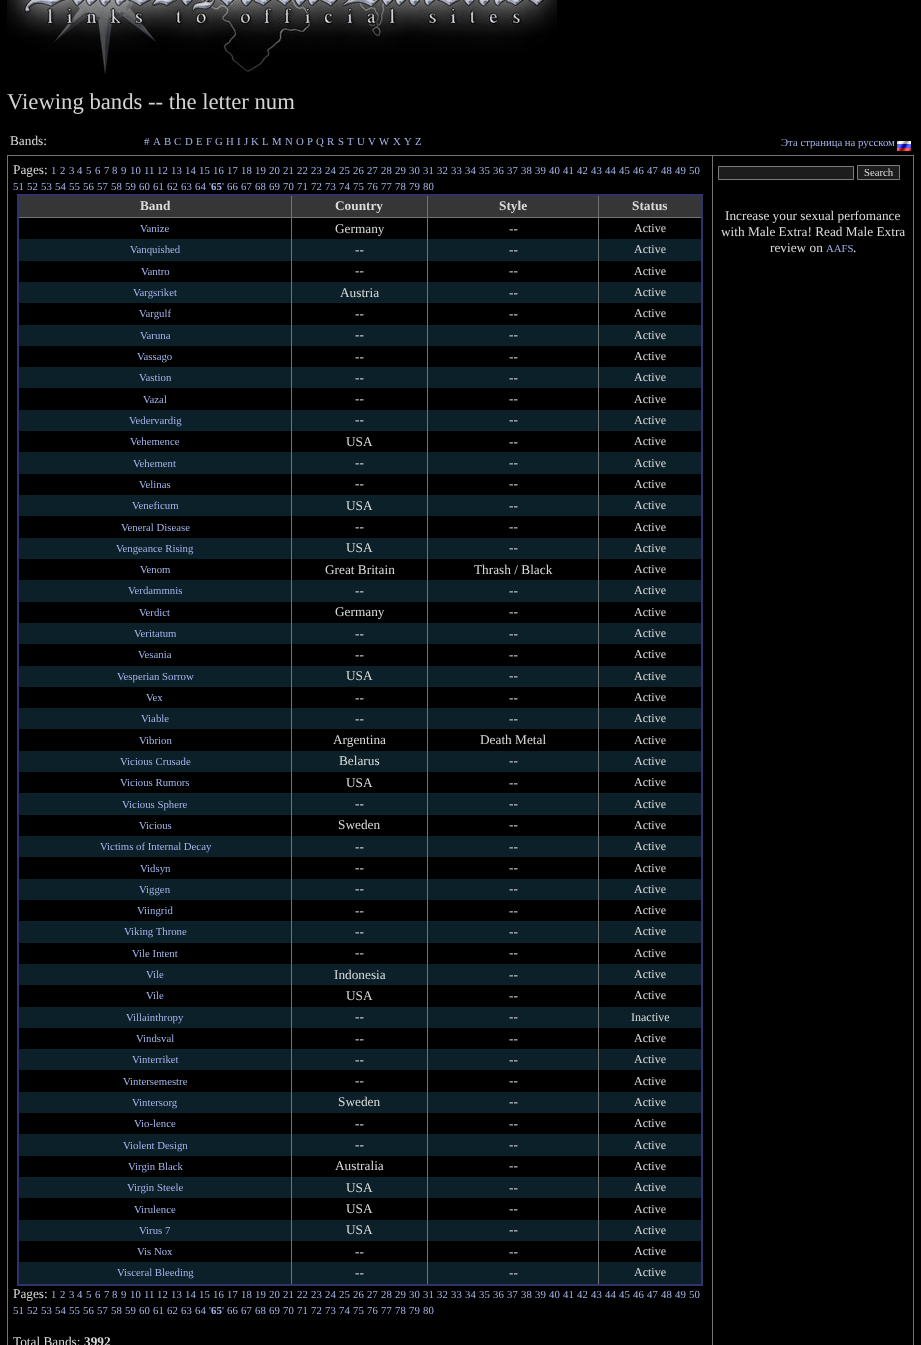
async function draw(canvas) {
  canvas.width = 921;
  canvas.height = 1345;
  const ctx = canvas.getContext('2d');
  ctx.miterLimit = 4;
  ctx.fontKerning = 'normal';
  function label(s, x, y, font, color) {
    ctx.font = font;
    ctx.fillStyle = color;
    ctx.fillText(s, x, y);
  }
  function rect(x, y, w, h, color) {
    ctx.fillStyle = color;
    ctx.fillRect(x, y, w, h);
  }
  async function image(src, x, y, w, h) {
    const img = new Image();
    img.src = src;
    await img.decode();
    ctx.drawImage(img, x, y, w, h);
  }

  rect(0, 0, 921, 1345, '#000');
  await image('assets/img1.png', 7, 0, 550, 74);
  label('Viewing bands -- the letter num', 7, 109, '22.7px Liberation Serif', '#d4d4d4');
  label('Bands:', 10, 145, '13.3px Liberation Serif', '#dbdbdb');
  label('#', 144, 145, '10.75px Liberation Serif', '#a3b4ea');
  label('A', 153, 145, '10.75px Liberation Serif', '#a3b4ea');
  label('B', 164, 145, '10.75px Liberation Serif', '#a3b4ea');
  label('C', 174, 145, '10.75px Liberation Serif', '#a3b4ea');
  label('D', 185, 145, '10.75px Liberation Serif', '#a3b4ea');
  label('E', 196, 145, '10.75px Liberation Serif', '#a3b4ea');
  label('F', 206, 145, '10.75px Liberation Serif', '#a3b4ea');
  label('G', 215, 145, '10.75px Liberation Serif', '#a3b4ea');
  label('H', 226, 145, '10.75px Liberation Serif', '#a3b4ea');
  label('I', 237, 145, '10.75px Liberation Serif', '#a3b4ea');
  label('J', 244, 145, '10.75px Liberation Serif', '#a3b4ea');
  label('K', 251, 145, '10.75px Liberation Serif', '#a3b4ea');
  label('L', 262, 145, '10.75px Liberation Serif', '#a3b4ea');
  label('M', 272, 145, '10.75px Liberation Serif', '#a3b4ea');
  label('N', 285, 145, '10.75px Liberation Serif', '#a3b4ea');
  label('O', 296, 145, '10.75px Liberation Serif', '#a3b4ea');
  label('P', 307, 145, '10.75px Liberation Serif', '#a3b4ea');
  label('Q', 316, 145, '10.75px Liberation Serif', '#a3b4ea');
  label('R', 327, 145, '10.75px Liberation Serif', '#a3b4ea');
  label('S', 338, 145, '10.75px Liberation Serif', '#a3b4ea');
  label('T', 347, 145, '10.75px Liberation Serif', '#a3b4ea');
  label('U', 357, 145, '10.75px Liberation Serif', '#a3b4ea');
  label('V', 368, 145, '10.75px Liberation Serif', '#a3b4ea');
  label('W', 379, 145, '10.75px Liberation Serif', '#a3b4ea');
  label('X', 393, 145, '10.75px Liberation Serif', '#a3b4ea');
  label('Y', 404, 145, '10.75px Liberation Serif', '#a3b4ea');
  label('Z', 415, 145, '10.75px Liberation Serif', '#a3b4ea');
  label('Эта страница на русском', 781, 146, '10.75px Liberation Serif', '#a3b4ea');
  await image('assets/img2.png', 897, 141, 14, 10);
  ctx.strokeStyle = '#727272';
  ctx.strokeRect(7.5, 155.5, 906, 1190);
  rect(712, 156, 1, 1189, '#727272');
  label('Pages:', 13, 174, '13.3px Liberation Serif', '#dbdbdb');
  label('1', 51, 174, '10.75px Liberation Serif', '#a3b4ea');
  label('2', 60, 174, '10.75px Liberation Serif', '#a3b4ea');
  label('3', 69, 174, '10.75px Liberation Serif', '#a3b4ea');
  label('4', 77, 174, '10.75px Liberation Serif', '#a3b4ea');
  label('5', 86, 174, '10.75px Liberation Serif', '#a3b4ea');
  label('6', 95, 174, '10.75px Liberation Serif', '#a3b4ea');
  label('7', 104, 174, '10.75px Liberation Serif', '#a3b4ea');
  label('8', 112, 174, '10.75px Liberation Serif', '#a3b4ea');
  label('9', 121, 174, '10.75px Liberation Serif', '#a3b4ea');
  label('10', 130, 174, '10.75px Liberation Serif', '#a3b4ea');
  label('11', 144, 174, '10.75px Liberation Serif', '#a3b4ea');
  label('12', 157, 174, '10.75px Liberation Serif', '#a3b4ea');
  label('13', 171, 174, '10.75px Liberation Serif', '#a3b4ea');
  label('14', 185, 174, '10.75px Liberation Serif', '#a3b4ea');
  label('15', 199, 174, '10.75px Liberation Serif', '#a3b4ea');
  label('16', 213, 174, '10.75px Liberation Serif', '#a3b4ea');
  label('17', 227, 174, '10.75px Liberation Serif', '#a3b4ea');
  label('18', 241, 174, '10.75px Liberation Serif', '#a3b4ea');
  label('19', 255, 174, '10.75px Liberation Serif', '#a3b4ea');
  label('20', 269, 174, '10.75px Liberation Serif', '#a3b4ea');
  label('21', 283, 174, '10.75px Liberation Serif', '#a3b4ea');
  label('22', 297, 174, '10.75px Liberation Serif', '#a3b4ea');
  label('23', 311, 174, '10.75px Liberation Serif', '#a3b4ea');
  label('24', 325, 174, '10.75px Liberation Serif', '#a3b4ea');
  label('25', 339, 174, '10.75px Liberation Serif', '#a3b4ea');
  label('26', 353, 174, '10.75px Liberation Serif', '#a3b4ea');
  label('27', 367, 174, '10.75px Liberation Serif', '#a3b4ea');
  label('28', 381, 174, '10.75px Liberation Serif', '#a3b4ea');
  label('29', 395, 174, '10.75px Liberation Serif', '#a3b4ea');
  label('30', 409, 174, '10.75px Liberation Serif', '#a3b4ea');
  label('31', 423, 174, '10.75px Liberation Serif', '#a3b4ea');
  label('32', 437, 174, '10.75px Liberation Serif', '#a3b4ea');
  label('33', 451, 174, '10.75px Liberation Serif', '#a3b4ea');
  label('34', 465, 174, '10.75px Liberation Serif', '#a3b4ea');
  label('35', 479, 174, '10.75px Liberation Serif', '#a3b4ea');
  label('36', 493, 174, '10.75px Liberation Serif', '#a3b4ea');
  label('37', 507, 174, '10.75px Liberation Serif', '#a3b4ea');
  label('38', 521, 174, '10.75px Liberation Serif', '#a3b4ea');
  label('39', 535, 174, '10.75px Liberation Serif', '#a3b4ea');
  label('40', 549, 174, '10.75px Liberation Serif', '#a3b4ea');
  label('41', 563, 174, '10.75px Liberation Serif', '#a3b4ea');
  label('42', 577, 174, '10.75px Liberation Serif', '#a3b4ea');
  label('43', 591, 174, '10.75px Liberation Serif', '#a3b4ea');
  label('44', 605, 174, '10.75px Liberation Serif', '#a3b4ea');
  label('45', 619, 174, '10.75px Liberation Serif', '#a3b4ea');
  label('46', 633, 174, '10.75px Liberation Serif', '#a3b4ea');
  label('47', 647, 174, '10.75px Liberation Serif', '#a3b4ea');
  label('48', 661, 174, '10.75px Liberation Serif', '#a3b4ea');
  label('49', 675, 174, '10.75px Liberation Serif', '#a3b4ea');
  label('50', 689, 174, '10.75px Liberation Serif', '#a3b4ea');
  label('51', 13, 190, '10.75px Liberation Serif', '#a3b4ea');
  label('52', 27, 190, '10.75px Liberation Serif', '#a3b4ea');
  label('53', 41, 190, '10.75px Liberation Serif', '#a3b4ea');
  label('54', 55, 190, '10.75px Liberation Serif', '#a3b4ea');
  label('55', 69, 190, '10.75px Liberation Serif', '#a3b4ea');
  label('56', 83, 190, '10.75px Liberation Serif', '#a3b4ea');
  label('57', 97, 190, '10.75px Liberation Serif', '#a3b4ea');
  label('58', 111, 190, '10.75px Liberation Serif', '#a3b4ea');
  label('59', 125, 190, '10.75px Liberation Serif', '#a3b4ea');
  label('60', 139, 190, '10.75px Liberation Serif', '#a3b4ea');
  label('61', 153, 190, '10.75px Liberation Serif', '#a3b4ea');
  label('62', 167, 190, '10.75px Liberation Serif', '#a3b4ea');
  label('63', 181, 190, '10.75px Liberation Serif', '#a3b4ea');
  label('64', 195, 190, '10.75px Liberation Serif', '#a3b4ea');
  label('\'', 209, 190, '10.75px Liberation Serif', '#a3b4ea');
  label('65', 211, 190, 'bold 10.75px Liberation Serif', '#a3b4ea');
  label('\'', 222, 190, '10.75px Liberation Serif', '#a3b4ea');
  label('66', 227, 190, '10.75px Liberation Serif', '#a3b4ea');
  label('67', 241, 190, '10.75px Liberation Serif', '#a3b4ea');
  label('68', 255, 190, '10.75px Liberation Serif', '#a3b4ea');
  label('69', 269, 190, '10.75px Liberation Serif', '#a3b4ea');
  label('70', 283, 190, '10.75px Liberation Serif', '#a3b4ea');
  label('71', 297, 190, '10.75px Liberation Serif', '#a3b4ea');
  label('72', 311, 190, '10.75px Liberation Serif', '#a3b4ea');
  label('73', 325, 190, '10.75px Liberation Serif', '#a3b4ea');
  label('74', 339, 190, '10.75px Liberation Serif', '#a3b4ea');
  label('75', 353, 190, '10.75px Liberation Serif', '#a3b4ea');
  label('76', 367, 190, '10.75px Liberation Serif', '#a3b4ea');
  label('77', 381, 190, '10.75px Liberation Serif', '#a3b4ea');
  label('78', 395, 190, '10.75px Liberation Serif', '#a3b4ea');
  label('79', 409, 190, '10.75px Liberation Serif', '#a3b4ea');
  label('80', 423, 190, '10.75px Liberation Serif', '#a3b4ea');
  ctx.strokeStyle = '#31326c';
  ctx.lineWidth = 2;
  ctx.strokeRect(18, 195, 684, 1090);
  rect(19, 196, 682, 21, '#363636');
  rect(291, 196, 1, 43, '#727272');
  rect(19, 217, 273, 1, '#727272');
  label('Band', 140, 210, 'bold 13.3px Liberation Serif', '#dbdbdb');
  rect(427, 196, 1, 43, '#727272');
  rect(292, 217, 136, 1, '#727272');
  label('Country', 335, 210, 'bold 13.3px Liberation Serif', '#dbdbdb');
  rect(598, 196, 1, 43, '#727272');
  rect(428, 217, 273, 1, '#727272');
  label('Style', 499, 210, 'bold 13.3px Liberation Serif', '#dbdbdb');
  label('Status', 632, 210, 'bold 13.3px Liberation Serif', '#dbdbdb');
  label('Vanize', 140, 232, '10.75px Liberation Serif', '#a3b4ea');
  label('Germany', 335, 233, '13.3px Liberation Serif', '#dbdbdb');
  label('--', 509, 233, '13.3px Liberation Serif', '#dbdbdb');
  label('Active', 634, 232, '12px Liberation Serif', '#dbdbdb');
  rect(19, 239, 682, 22, '#0c2029');
  rect(291, 239, 1, 43, '#727272');
  label('Vanquished', 130, 253, '10.75px Liberation Serif', '#a3b4ea');
  rect(427, 239, 1, 43, '#727272');
  label('--', 355, 254, '13.3px Liberation Serif', '#dbdbdb');
  rect(598, 239, 1, 43, '#727272');
  label('--', 509, 254, '13.3px Liberation Serif', '#dbdbdb');
  label('Active', 634, 253, '12px Liberation Serif', '#dbdbdb');
  label('Vantro', 141, 275, '10.75px Liberation Serif', '#a3b4ea');
  label('--', 355, 275, '13.3px Liberation Serif', '#dbdbdb');
  label('--', 509, 275, '13.3px Liberation Serif', '#dbdbdb');
  label('Active', 634, 275, '12px Liberation Serif', '#dbdbdb');
  rect(19, 282, 682, 21, '#0c2029');
  rect(291, 282, 1, 43, '#727272');
  label('Vargsriket', 133, 296, '10.75px Liberation Serif', '#a3b4ea');
  rect(427, 282, 1, 43, '#727272');
  label('Austria', 340, 297, '13.3px Liberation Serif', '#dbdbdb');
  rect(598, 282, 1, 43, '#727272');
  label('--', 509, 297, '13.3px Liberation Serif', '#dbdbdb');
  label('Active', 634, 296, '12px Liberation Serif', '#dbdbdb');
  label('Vargulf', 139, 317, '10.75px Liberation Serif', '#a3b4ea');
  label('--', 355, 318, '13.3px Liberation Serif', '#dbdbdb');
  label('--', 509, 318, '13.3px Liberation Serif', '#dbdbdb');
  label('Active', 634, 317, '12px Liberation Serif', '#dbdbdb');
  rect(19, 325, 682, 21, '#0c2029');
  rect(291, 325, 1, 42, '#727272');
  label('Varuna', 140, 339, '10.75px Liberation Serif', '#a3b4ea');
  rect(427, 325, 1, 42, '#727272');
  label('--', 355, 339, '13.3px Liberation Serif', '#dbdbdb');
  rect(598, 325, 1, 42, '#727272');
  label('--', 509, 339, '13.3px Liberation Serif', '#dbdbdb');
  label('Active', 634, 339, '12px Liberation Serif', '#dbdbdb');
  label('Vassago', 137, 360, '10.75px Liberation Serif', '#a3b4ea');
  label('--', 355, 361, '13.3px Liberation Serif', '#dbdbdb');
  label('--', 509, 361, '13.3px Liberation Serif', '#dbdbdb');
  label('Active', 634, 360, '12px Liberation Serif', '#dbdbdb');
  rect(19, 367, 682, 21, '#0c2029');
  rect(291, 367, 1, 43, '#727272');
  label('Vastion', 139, 381, '10.75px Liberation Serif', '#a3b4ea');
  rect(427, 367, 1, 43, '#727272');
  label('--', 355, 382, '13.3px Liberation Serif', '#dbdbdb');
  rect(598, 367, 1, 43, '#727272');
  label('--', 509, 382, '13.3px Liberation Serif', '#dbdbdb');
  label('Active', 634, 381, '12px Liberation Serif', '#dbdbdb');
  label('Vazal', 143, 403, '10.75px Liberation Serif', '#a3b4ea');
  label('--', 355, 403, '13.3px Liberation Serif', '#dbdbdb');
  label('--', 509, 403, '13.3px Liberation Serif', '#dbdbdb');
  label('Active', 634, 403, '12px Liberation Serif', '#dbdbdb');
  rect(19, 410, 682, 21, '#0c2029');
  rect(291, 410, 1, 42, '#727272');
  label('Vedervardig', 129, 424, '10.75px Liberation Serif', '#a3b4ea');
  rect(427, 410, 1, 42, '#727272');
  label('--', 355, 424, '13.3px Liberation Serif', '#dbdbdb');
  rect(598, 410, 1, 42, '#727272');
  label('--', 509, 424, '13.3px Liberation Serif', '#dbdbdb');
  label('Active', 634, 424, '12px Liberation Serif', '#dbdbdb');
  label('Vehemence', 130, 445, '10.75px Liberation Serif', '#a3b4ea');
  label('USA', 346, 446, '13.3px Liberation Serif', '#dbdbdb');
  label('--', 509, 446, '13.3px Liberation Serif', '#dbdbdb');
  label('Active', 634, 445, '12px Liberation Serif', '#dbdbdb');
  rect(19, 452, 682, 22, '#0c2029');
  rect(291, 452, 1, 43, '#727272');
  label('Vehement', 133, 467, '10.75px Liberation Serif', '#a3b4ea');
  rect(427, 452, 1, 43, '#727272');
  label('--', 355, 467, '13.3px Liberation Serif', '#dbdbdb');
  rect(598, 452, 1, 43, '#727272');
  label('--', 509, 467, '13.3px Liberation Serif', '#dbdbdb');
  label('Active', 634, 467, '12px Liberation Serif', '#dbdbdb');
  label('Velinas', 139, 488, '10.75px Liberation Serif', '#a3b4ea');
  label('--', 355, 488, '13.3px Liberation Serif', '#dbdbdb');
  label('--', 509, 488, '13.3px Liberation Serif', '#dbdbdb');
  label('Active', 634, 488, '12px Liberation Serif', '#dbdbdb');
  rect(19, 495, 682, 21, '#0c2029');
  rect(291, 495, 1, 43, '#727272');
  label('Veneficum', 132, 509, '10.75px Liberation Serif', '#a3b4ea');
  rect(427, 495, 1, 43, '#727272');
  label('USA', 346, 510, '13.3px Liberation Serif', '#dbdbdb');
  rect(598, 495, 1, 43, '#727272');
  label('--', 509, 510, '13.3px Liberation Serif', '#dbdbdb');
  label('Active', 634, 509, '12px Liberation Serif', '#dbdbdb');
  label('Veneral Disease', 121, 531, '10.75px Liberation Serif', '#a3b4ea');
  label('--', 355, 531, '13.3px Liberation Serif', '#dbdbdb');
  label('--', 509, 531, '13.3px Liberation Serif', '#dbdbdb');
  label('Active', 634, 531, '12px Liberation Serif', '#dbdbdb');
  rect(19, 538, 682, 21, '#0c2029');
  rect(291, 538, 1, 42, '#727272');
  label('Vengeance Rising', 116, 552, '10.75px Liberation Serif', '#a3b4ea');
  rect(427, 538, 1, 42, '#727272');
  label('USA', 346, 552, '13.3px Liberation Serif', '#dbdbdb');
  rect(598, 538, 1, 42, '#727272');
  label('--', 509, 552, '13.3px Liberation Serif', '#dbdbdb');
  label('Active', 634, 552, '12px Liberation Serif', '#dbdbdb');
  label('Venom', 140, 573, '10.75px Liberation Serif', '#a3b4ea');
  label('Great Britain', 325, 574, '13.3px Liberation Serif', '#dbdbdb');
  label('Thrash / Black', 474, 574, '13.3px Liberation Serif', '#dbdbdb');
  label('Active', 634, 573, '12px Liberation Serif', '#dbdbdb');
  rect(19, 580, 682, 22, '#0c2029');
  rect(291, 580, 1, 43, '#727272');
  label('Verdammnis', 128, 594, '10.75px Liberation Serif', '#a3b4ea');
  rect(427, 580, 1, 43, '#727272');
  label('--', 355, 595, '13.3px Liberation Serif', '#dbdbdb');
  rect(598, 580, 1, 43, '#727272');
  label('--', 509, 595, '13.3px Liberation Serif', '#dbdbdb');
  label('Active', 634, 594, '12px Liberation Serif', '#dbdbdb');
  label('Verdict', 139, 616, '10.75px Liberation Serif', '#a3b4ea');
  label('Germany', 335, 616, '13.3px Liberation Serif', '#dbdbdb');
  label('--', 509, 616, '13.3px Liberation Serif', '#dbdbdb');
  label('Active', 634, 616, '12px Liberation Serif', '#dbdbdb');
  rect(19, 623, 682, 21, '#0c2029');
  rect(291, 623, 1, 43, '#727272');
  label('Veritatum', 134, 637, '10.75px Liberation Serif', '#a3b4ea');
  rect(427, 623, 1, 43, '#727272');
  label('--', 355, 638, '13.3px Liberation Serif', '#dbdbdb');
  rect(598, 623, 1, 43, '#727272');
  label('--', 509, 638, '13.3px Liberation Serif', '#dbdbdb');
  label('Active', 634, 637, '12px Liberation Serif', '#dbdbdb');
  label('Vesania', 138, 658, '10.75px Liberation Serif', '#a3b4ea');
  label('--', 355, 659, '13.3px Liberation Serif', '#dbdbdb');
  label('--', 509, 659, '13.3px Liberation Serif', '#dbdbdb');
  label('Active', 634, 658, '12px Liberation Serif', '#dbdbdb');
  rect(19, 666, 682, 21, '#0c2029');
  rect(291, 666, 1, 42, '#727272');
  label('Vesperian Sorrow', 117, 680, '10.75px Liberation Serif', '#a3b4ea');
  rect(427, 666, 1, 42, '#727272');
  label('USA', 346, 680, '13.3px Liberation Serif', '#dbdbdb');
  rect(598, 666, 1, 42, '#727272');
  label('--', 509, 680, '13.3px Liberation Serif', '#dbdbdb');
  label('Active', 634, 680, '12px Liberation Serif', '#dbdbdb');
  label('Vex', 146, 701, '10.75px Liberation Serif', '#a3b4ea');
  label('--', 355, 702, '13.3px Liberation Serif', '#dbdbdb');
  label('--', 509, 702, '13.3px Liberation Serif', '#dbdbdb');
  label('Active', 634, 701, '12px Liberation Serif', '#dbdbdb');
  rect(19, 708, 682, 21, '#0c2029');
  rect(291, 708, 1, 43, '#727272');
  label('Viable', 141, 722, '10.75px Liberation Serif', '#a3b4ea');
  rect(427, 708, 1, 43, '#727272');
  label('--', 355, 723, '13.3px Liberation Serif', '#dbdbdb');
  rect(598, 708, 1, 43, '#727272');
  label('--', 509, 723, '13.3px Liberation Serif', '#dbdbdb');
  label('Active', 634, 722, '12px Liberation Serif', '#dbdbdb');
  label('Vibrion', 139, 744, '10.75px Liberation Serif', '#a3b4ea');
  label('Argentina', 333, 744, '13.3px Liberation Serif', '#dbdbdb');
  label('Death Metal', 480, 744, '13.3px Liberation Serif', '#dbdbdb');
  label('Active', 634, 744, '12px Liberation Serif', '#dbdbdb');
  rect(19, 751, 682, 21, '#0c2029');
  rect(291, 751, 1, 42, '#727272');
  label('Vicious Crusade', 120, 765, '10.75px Liberation Serif', '#a3b4ea');
  rect(427, 751, 1, 42, '#727272');
  label('Belarus', 339, 765, '13.3px Liberation Serif', '#dbdbdb');
  rect(598, 751, 1, 42, '#727272');
  label('--', 509, 765, '13.3px Liberation Serif', '#dbdbdb');
  label('Active', 634, 765, '12px Liberation Serif', '#dbdbdb');
  label('Vicious Rumors', 120, 786, '10.75px Liberation Serif', '#a3b4ea');
  label('USA', 346, 787, '13.3px Liberation Serif', '#dbdbdb');
  label('--', 509, 787, '13.3px Liberation Serif', '#dbdbdb');
  label('Active', 634, 786, '12px Liberation Serif', '#dbdbdb');
  rect(19, 793, 682, 22, '#0c2029');
  rect(291, 793, 1, 43, '#727272');
  label('Vicious Sphere', 122, 808, '10.75px Liberation Serif', '#a3b4ea');
  rect(427, 793, 1, 43, '#727272');
  label('--', 355, 808, '13.3px Liberation Serif', '#dbdbdb');
  rect(598, 793, 1, 43, '#727272');
  label('--', 509, 808, '13.3px Liberation Serif', '#dbdbdb');
  label('Active', 634, 808, '12px Liberation Serif', '#dbdbdb');
  label('Vicious', 139, 829, '10.75px Liberation Serif', '#a3b4ea');
  label('Sweden', 338, 829, '13.3px Liberation Serif', '#dbdbdb');
  label('--', 509, 829, '13.3px Liberation Serif', '#dbdbdb');
  label('Active', 634, 829, '12px Liberation Serif', '#dbdbdb');
  rect(19, 836, 682, 21, '#0c2029');
  rect(291, 836, 1, 43, '#727272');
  label('Victims of Internal Decay', 100, 850, '10.75px Liberation Serif', '#a3b4ea');
  rect(427, 836, 1, 43, '#727272');
  label('--', 355, 851, '13.3px Liberation Serif', '#dbdbdb');
  rect(598, 836, 1, 43, '#727272');
  label('--', 509, 851, '13.3px Liberation Serif', '#dbdbdb');
  label('Active', 634, 850, '12px Liberation Serif', '#dbdbdb');
  label('Vidsyn', 140, 872, '10.75px Liberation Serif', '#a3b4ea');
  label('--', 355, 872, '13.3px Liberation Serif', '#dbdbdb');
  label('--', 509, 872, '13.3px Liberation Serif', '#dbdbdb');
  label('Active', 634, 872, '12px Liberation Serif', '#dbdbdb');
  rect(19, 879, 682, 21, '#0c2029');
  rect(291, 879, 1, 42, '#727272');
  label('Viggen', 139, 893, '10.75px Liberation Serif', '#a3b4ea');
  rect(427, 879, 1, 42, '#727272');
  label('--', 355, 893, '13.3px Liberation Serif', '#dbdbdb');
  rect(598, 879, 1, 42, '#727272');
  label('--', 509, 893, '13.3px Liberation Serif', '#dbdbdb');
  label('Active', 634, 893, '12px Liberation Serif', '#dbdbdb');
  label('Viingrid', 137, 914, '10.75px Liberation Serif', '#a3b4ea');
  label('--', 355, 915, '13.3px Liberation Serif', '#dbdbdb');
  label('--', 509, 915, '13.3px Liberation Serif', '#dbdbdb');
  label('Active', 634, 914, '12px Liberation Serif', '#dbdbdb');
  rect(19, 921, 682, 22, '#0c2029');
  rect(291, 921, 1, 43, '#727272');
  label('Viking Throne', 124, 935, '10.75px Liberation Serif', '#a3b4ea');
  rect(427, 921, 1, 43, '#727272');
  label('--', 355, 936, '13.3px Liberation Serif', '#dbdbdb');
  rect(598, 921, 1, 43, '#727272');
  label('--', 509, 936, '13.3px Liberation Serif', '#dbdbdb');
  label('Active', 634, 935, '12px Liberation Serif', '#dbdbdb');
  label('Vile Intent', 132, 957, '10.75px Liberation Serif', '#a3b4ea');
  label('--', 355, 957, '13.3px Liberation Serif', '#dbdbdb');
  label('--', 509, 957, '13.3px Liberation Serif', '#dbdbdb');
  label('Active', 634, 957, '12px Liberation Serif', '#dbdbdb');
  rect(19, 964, 682, 21, '#0c2029');
  rect(291, 964, 1, 43, '#727272');
  label('Vile', 146, 978, '10.75px Liberation Serif', '#a3b4ea');
  rect(427, 964, 1, 43, '#727272');
  label('Indonesia', 334, 979, '13.3px Liberation Serif', '#dbdbdb');
  rect(598, 964, 1, 43, '#727272');
  label('--', 509, 979, '13.3px Liberation Serif', '#dbdbdb');
  label('Active', 634, 978, '12px Liberation Serif', '#dbdbdb');
  label('Vile', 146, 999, '10.75px Liberation Serif', '#a3b4ea');
  label('USA', 346, 1000, '13.3px Liberation Serif', '#dbdbdb');
  label('--', 509, 1000, '13.3px Liberation Serif', '#dbdbdb');
  label('Active', 634, 999, '12px Liberation Serif', '#dbdbdb');
  rect(19, 1007, 682, 21, '#0c2029');
  rect(291, 1007, 1, 42, '#727272');
  label('Villainthropy', 126, 1021, '10.75px Liberation Serif', '#a3b4ea');
  rect(427, 1007, 1, 42, '#727272');
  label('--', 355, 1021, '13.3px Liberation Serif', '#dbdbdb');
  rect(598, 1007, 1, 42, '#727272');
  label('--', 509, 1021, '13.3px Liberation Serif', '#dbdbdb');
  label('Inactive', 631, 1021, '12px Liberation Serif', '#dbdbdb');
  label('Vindsval', 136, 1042, '10.75px Liberation Serif', '#a3b4ea');
  label('--', 355, 1043, '13.3px Liberation Serif', '#dbdbdb');
  label('--', 509, 1043, '13.3px Liberation Serif', '#dbdbdb');
  label('Active', 634, 1042, '12px Liberation Serif', '#dbdbdb');
  rect(19, 1049, 682, 21, '#0c2029');
  rect(291, 1049, 1, 43, '#727272');
  label('Vinterriket', 132, 1063, '10.75px Liberation Serif', '#a3b4ea');
  rect(427, 1049, 1, 43, '#727272');
  label('--', 355, 1064, '13.3px Liberation Serif', '#dbdbdb');
  rect(598, 1049, 1, 43, '#727272');
  label('--', 509, 1064, '13.3px Liberation Serif', '#dbdbdb');
  label('Active', 634, 1063, '12px Liberation Serif', '#dbdbdb');
  label('Vintersemestre', 123, 1085, '10.75px Liberation Serif', '#a3b4ea');
  label('--', 355, 1085, '13.3px Liberation Serif', '#dbdbdb');
  label('--', 509, 1085, '13.3px Liberation Serif', '#dbdbdb');
  label('Active', 634, 1085, '12px Liberation Serif', '#dbdbdb');
  rect(19, 1092, 682, 21, '#0c2029');
  rect(291, 1092, 1, 42, '#727272');
  label('Vintersorg', 132, 1106, '10.75px Liberation Serif', '#a3b4ea');
  rect(427, 1092, 1, 42, '#727272');
  label('Sweden', 338, 1106, '13.3px Liberation Serif', '#dbdbdb');
  rect(598, 1092, 1, 42, '#727272');
  label('--', 509, 1106, '13.3px Liberation Serif', '#dbdbdb');
  label('Active', 634, 1106, '12px Liberation Serif', '#dbdbdb');
  label('Vio-lence', 134, 1127, '10.75px Liberation Serif', '#a3b4ea');
  label('--', 355, 1128, '13.3px Liberation Serif', '#dbdbdb');
  label('--', 509, 1128, '13.3px Liberation Serif', '#dbdbdb');
  label('Active', 634, 1127, '12px Liberation Serif', '#dbdbdb');
  rect(19, 1134, 682, 22, '#0c2029');
  rect(291, 1134, 1, 43, '#727272');
  label('Violent Design', 123, 1149, '10.75px Liberation Serif', '#a3b4ea');
  rect(427, 1134, 1, 43, '#727272');
  label('--', 355, 1149, '13.3px Liberation Serif', '#dbdbdb');
  rect(598, 1134, 1, 43, '#727272');
  label('--', 509, 1149, '13.3px Liberation Serif', '#dbdbdb');
  label('Active', 634, 1149, '12px Liberation Serif', '#dbdbdb');
  label('Virgin Black', 128, 1170, '10.75px Liberation Serif', '#a3b4ea');
  label('Australia', 335, 1170, '13.3px Liberation Serif', '#dbdbdb');
  label('--', 509, 1170, '13.3px Liberation Serif', '#dbdbdb');
  label('Active', 634, 1170, '12px Liberation Serif', '#dbdbdb');
  rect(19, 1177, 682, 21, '#0c2029');
  rect(291, 1177, 1, 43, '#727272');
  label('Virgin Steele', 127, 1191, '10.75px Liberation Serif', '#a3b4ea');
  rect(427, 1177, 1, 43, '#727272');
  label('USA', 346, 1192, '13.3px Liberation Serif', '#dbdbdb');
  rect(598, 1177, 1, 43, '#727272');
  label('--', 509, 1192, '13.3px Liberation Serif', '#dbdbdb');
  label('Active', 634, 1191, '12px Liberation Serif', '#dbdbdb');
  label('Virulence', 134, 1213, '10.75px Liberation Serif', '#a3b4ea');
  label('USA', 346, 1213, '13.3px Liberation Serif', '#dbdbdb');
  label('--', 509, 1213, '13.3px Liberation Serif', '#dbdbdb');
  label('Active', 634, 1213, '12px Liberation Serif', '#dbdbdb');
  rect(19, 1220, 682, 21, '#0c2029');
  rect(291, 1220, 1, 42, '#727272');
  label('Virus 7', 139, 1234, '10.75px Liberation Serif', '#a3b4ea');
  rect(427, 1220, 1, 42, '#727272');
  label('USA', 346, 1234, '13.3px Liberation Serif', '#dbdbdb');
  rect(598, 1220, 1, 42, '#727272');
  label('--', 509, 1234, '13.3px Liberation Serif', '#dbdbdb');
  label('Active', 634, 1234, '12px Liberation Serif', '#dbdbdb');
  label('Vis Nox', 137, 1255, '10.75px Liberation Serif', '#a3b4ea');
  label('--', 355, 1256, '13.3px Liberation Serif', '#dbdbdb');
  label('--', 509, 1256, '13.3px Liberation Serif', '#dbdbdb');
  label('Active', 634, 1255, '12px Liberation Serif', '#dbdbdb');
  rect(19, 1262, 682, 22, '#0c2029');
  rect(291, 1262, 1, 22, '#727272');
  label('Visceral Bleeding', 117, 1276, '10.75px Liberation Serif', '#a3b4ea');
  rect(427, 1262, 1, 22, '#727272');
  label('--', 355, 1277, '13.3px Liberation Serif', '#dbdbdb');
  rect(598, 1262, 1, 22, '#727272');
  label('--', 509, 1277, '13.3px Liberation Serif', '#dbdbdb');
  label('Active', 634, 1276, '12px Liberation Serif', '#dbdbdb');
  label('Pages:', 13, 1298, '13.3px Liberation Serif', '#dbdbdb');
  label('1', 51, 1298, '10.75px Liberation Serif', '#a3b4ea');
  label('2', 60, 1298, '10.75px Liberation Serif', '#a3b4ea');
  label('3', 69, 1298, '10.75px Liberation Serif', '#a3b4ea');
  label('4', 77, 1298, '10.75px Liberation Serif', '#a3b4ea');
  label('5', 86, 1298, '10.75px Liberation Serif', '#a3b4ea');
  label('6', 95, 1298, '10.75px Liberation Serif', '#a3b4ea');
  label('7', 104, 1298, '10.75px Liberation Serif', '#a3b4ea');
  label('8', 112, 1298, '10.75px Liberation Serif', '#a3b4ea');
  label('9', 121, 1298, '10.75px Liberation Serif', '#a3b4ea');
  label('10', 130, 1298, '10.75px Liberation Serif', '#a3b4ea');
  label('11', 144, 1298, '10.75px Liberation Serif', '#a3b4ea');
  label('12', 157, 1298, '10.75px Liberation Serif', '#a3b4ea');
  label('13', 171, 1298, '10.75px Liberation Serif', '#a3b4ea');
  label('14', 185, 1298, '10.75px Liberation Serif', '#a3b4ea');
  label('15', 199, 1298, '10.75px Liberation Serif', '#a3b4ea');
  label('16', 213, 1298, '10.75px Liberation Serif', '#a3b4ea');
  label('17', 227, 1298, '10.75px Liberation Serif', '#a3b4ea');
  label('18', 241, 1298, '10.75px Liberation Serif', '#a3b4ea');
  label('19', 255, 1298, '10.75px Liberation Serif', '#a3b4ea');
  label('20', 269, 1298, '10.75px Liberation Serif', '#a3b4ea');
  label('21', 283, 1298, '10.75px Liberation Serif', '#a3b4ea');
  label('22', 297, 1298, '10.75px Liberation Serif', '#a3b4ea');
  label('23', 311, 1298, '10.75px Liberation Serif', '#a3b4ea');
  label('24', 325, 1298, '10.75px Liberation Serif', '#a3b4ea');
  label('25', 339, 1298, '10.75px Liberation Serif', '#a3b4ea');
  label('26', 353, 1298, '10.75px Liberation Serif', '#a3b4ea');
  label('27', 367, 1298, '10.75px Liberation Serif', '#a3b4ea');
  label('28', 381, 1298, '10.75px Liberation Serif', '#a3b4ea');
  label('29', 395, 1298, '10.75px Liberation Serif', '#a3b4ea');
  label('30', 409, 1298, '10.75px Liberation Serif', '#a3b4ea');
  label('31', 423, 1298, '10.75px Liberation Serif', '#a3b4ea');
  label('32', 437, 1298, '10.75px Liberation Serif', '#a3b4ea');
  label('33', 451, 1298, '10.75px Liberation Serif', '#a3b4ea');
  label('34', 465, 1298, '10.75px Liberation Serif', '#a3b4ea');
  label('35', 479, 1298, '10.75px Liberation Serif', '#a3b4ea');
  label('36', 493, 1298, '10.75px Liberation Serif', '#a3b4ea');
  label('37', 507, 1298, '10.75px Liberation Serif', '#a3b4ea');
  label('38', 521, 1298, '10.75px Liberation Serif', '#a3b4ea');
  label('39', 535, 1298, '10.75px Liberation Serif', '#a3b4ea');
  label('40', 549, 1298, '10.75px Liberation Serif', '#a3b4ea');
  label('41', 563, 1298, '10.75px Liberation Serif', '#a3b4ea');
  label('42', 577, 1298, '10.75px Liberation Serif', '#a3b4ea');
  label('43', 591, 1298, '10.75px Liberation Serif', '#a3b4ea');
  label('44', 605, 1298, '10.75px Liberation Serif', '#a3b4ea');
  label('45', 619, 1298, '10.75px Liberation Serif', '#a3b4ea');
  label('46', 633, 1298, '10.75px Liberation Serif', '#a3b4ea');
  label('47', 647, 1298, '10.75px Liberation Serif', '#a3b4ea');
  label('48', 661, 1298, '10.75px Liberation Serif', '#a3b4ea');
  label('49', 675, 1298, '10.75px Liberation Serif', '#a3b4ea');
  label('50', 689, 1298, '10.75px Liberation Serif', '#a3b4ea');
  label('51', 13, 1314, '10.75px Liberation Serif', '#a3b4ea');
  label('52', 27, 1314, '10.75px Liberation Serif', '#a3b4ea');
  label('53', 41, 1314, '10.75px Liberation Serif', '#a3b4ea');
  label('54', 55, 1314, '10.75px Liberation Serif', '#a3b4ea');
  label('55', 69, 1314, '10.75px Liberation Serif', '#a3b4ea');
  label('56', 83, 1314, '10.75px Liberation Serif', '#a3b4ea');
  label('57', 97, 1314, '10.75px Liberation Serif', '#a3b4ea');
  label('58', 111, 1314, '10.75px Liberation Serif', '#a3b4ea');
  label('59', 125, 1314, '10.75px Liberation Serif', '#a3b4ea');
  label('60', 139, 1314, '10.75px Liberation Serif', '#a3b4ea');
  label('61', 153, 1314, '10.75px Liberation Serif', '#a3b4ea');
  label('62', 167, 1314, '10.75px Liberation Serif', '#a3b4ea');
  label('63', 181, 1314, '10.75px Liberation Serif', '#a3b4ea');
  label('64', 195, 1314, '10.75px Liberation Serif', '#a3b4ea');
  label('\'', 209, 1314, '10.75px Liberation Serif', '#a3b4ea');
  label('65', 211, 1314, 'bold 10.75px Liberation Serif', '#a3b4ea');
  label('\'', 222, 1314, '10.75px Liberation Serif', '#a3b4ea');
  label('66', 227, 1314, '10.75px Liberation Serif', '#a3b4ea');
  label('67', 241, 1314, '10.75px Liberation Serif', '#a3b4ea');
  label('68', 255, 1314, '10.75px Liberation Serif', '#a3b4ea');
  label('69', 269, 1314, '10.75px Liberation Serif', '#a3b4ea');
  label('70', 283, 1314, '10.75px Liberation Serif', '#a3b4ea');
  label('71', 297, 1314, '10.75px Liberation Serif', '#a3b4ea');
  label('72', 311, 1314, '10.75px Liberation Serif', '#a3b4ea');
  label('73', 325, 1314, '10.75px Liberation Serif', '#a3b4ea');
  label('74', 339, 1314, '10.75px Liberation Serif', '#a3b4ea');
  label('75', 353, 1314, '10.75px Liberation Serif', '#a3b4ea');
  label('76', 367, 1314, '10.75px Liberation Serif', '#a3b4ea');
  label('77', 381, 1314, '10.75px Liberation Serif', '#a3b4ea');
  label('78', 395, 1314, '10.75px Liberation Serif', '#a3b4ea');
  label('79', 409, 1314, '10.75px Liberation Serif', '#a3b4ea');
  label('80', 423, 1314, '10.75px Liberation Serif', '#a3b4ea');
  label('Total Bands:', 13, 1346, '13.3px Liberation Serif', '#dbdbdb');
  label('3992', 84, 1346, 'bold 13.3px Liberation Serif', '#dbdbdb');
  ctx.fillStyle = '#1d1d1d';
  ctx.beginPath();
  ctx.rect(718.5, 166.5, 135, 13);
  ctx.fill();
  ctx.strokeStyle = '#7c7c7c';
  ctx.lineWidth = 1;
  ctx.stroke();
  ctx.beginPath();
  ctx.rect(857.5, 165.5, 42, 14);
  ctx.fill();
  ctx.stroke();
  label('Search', 864, 176, '10.75px Liberation Serif', '#dbdbdb');
  label('Increase your sexual perfomance', 725, 220, '13.3px Liberation Serif', '#dbdbdb');
  label('with Male Extra! Read Male Extra', 721, 236, '13.3px Liberation Serif', '#dbdbdb');
  label('review on', 770, 252, '13.3px Liberation Serif', '#dbdbdb');
  label('AAFS', 826, 252, '10.75px Liberation Serif', '#a3b4ea');
  label('.', 853, 252, '13.3px Liberation Serif', '#dbdbdb');
}

draw(document.querySelector('canvas'));
